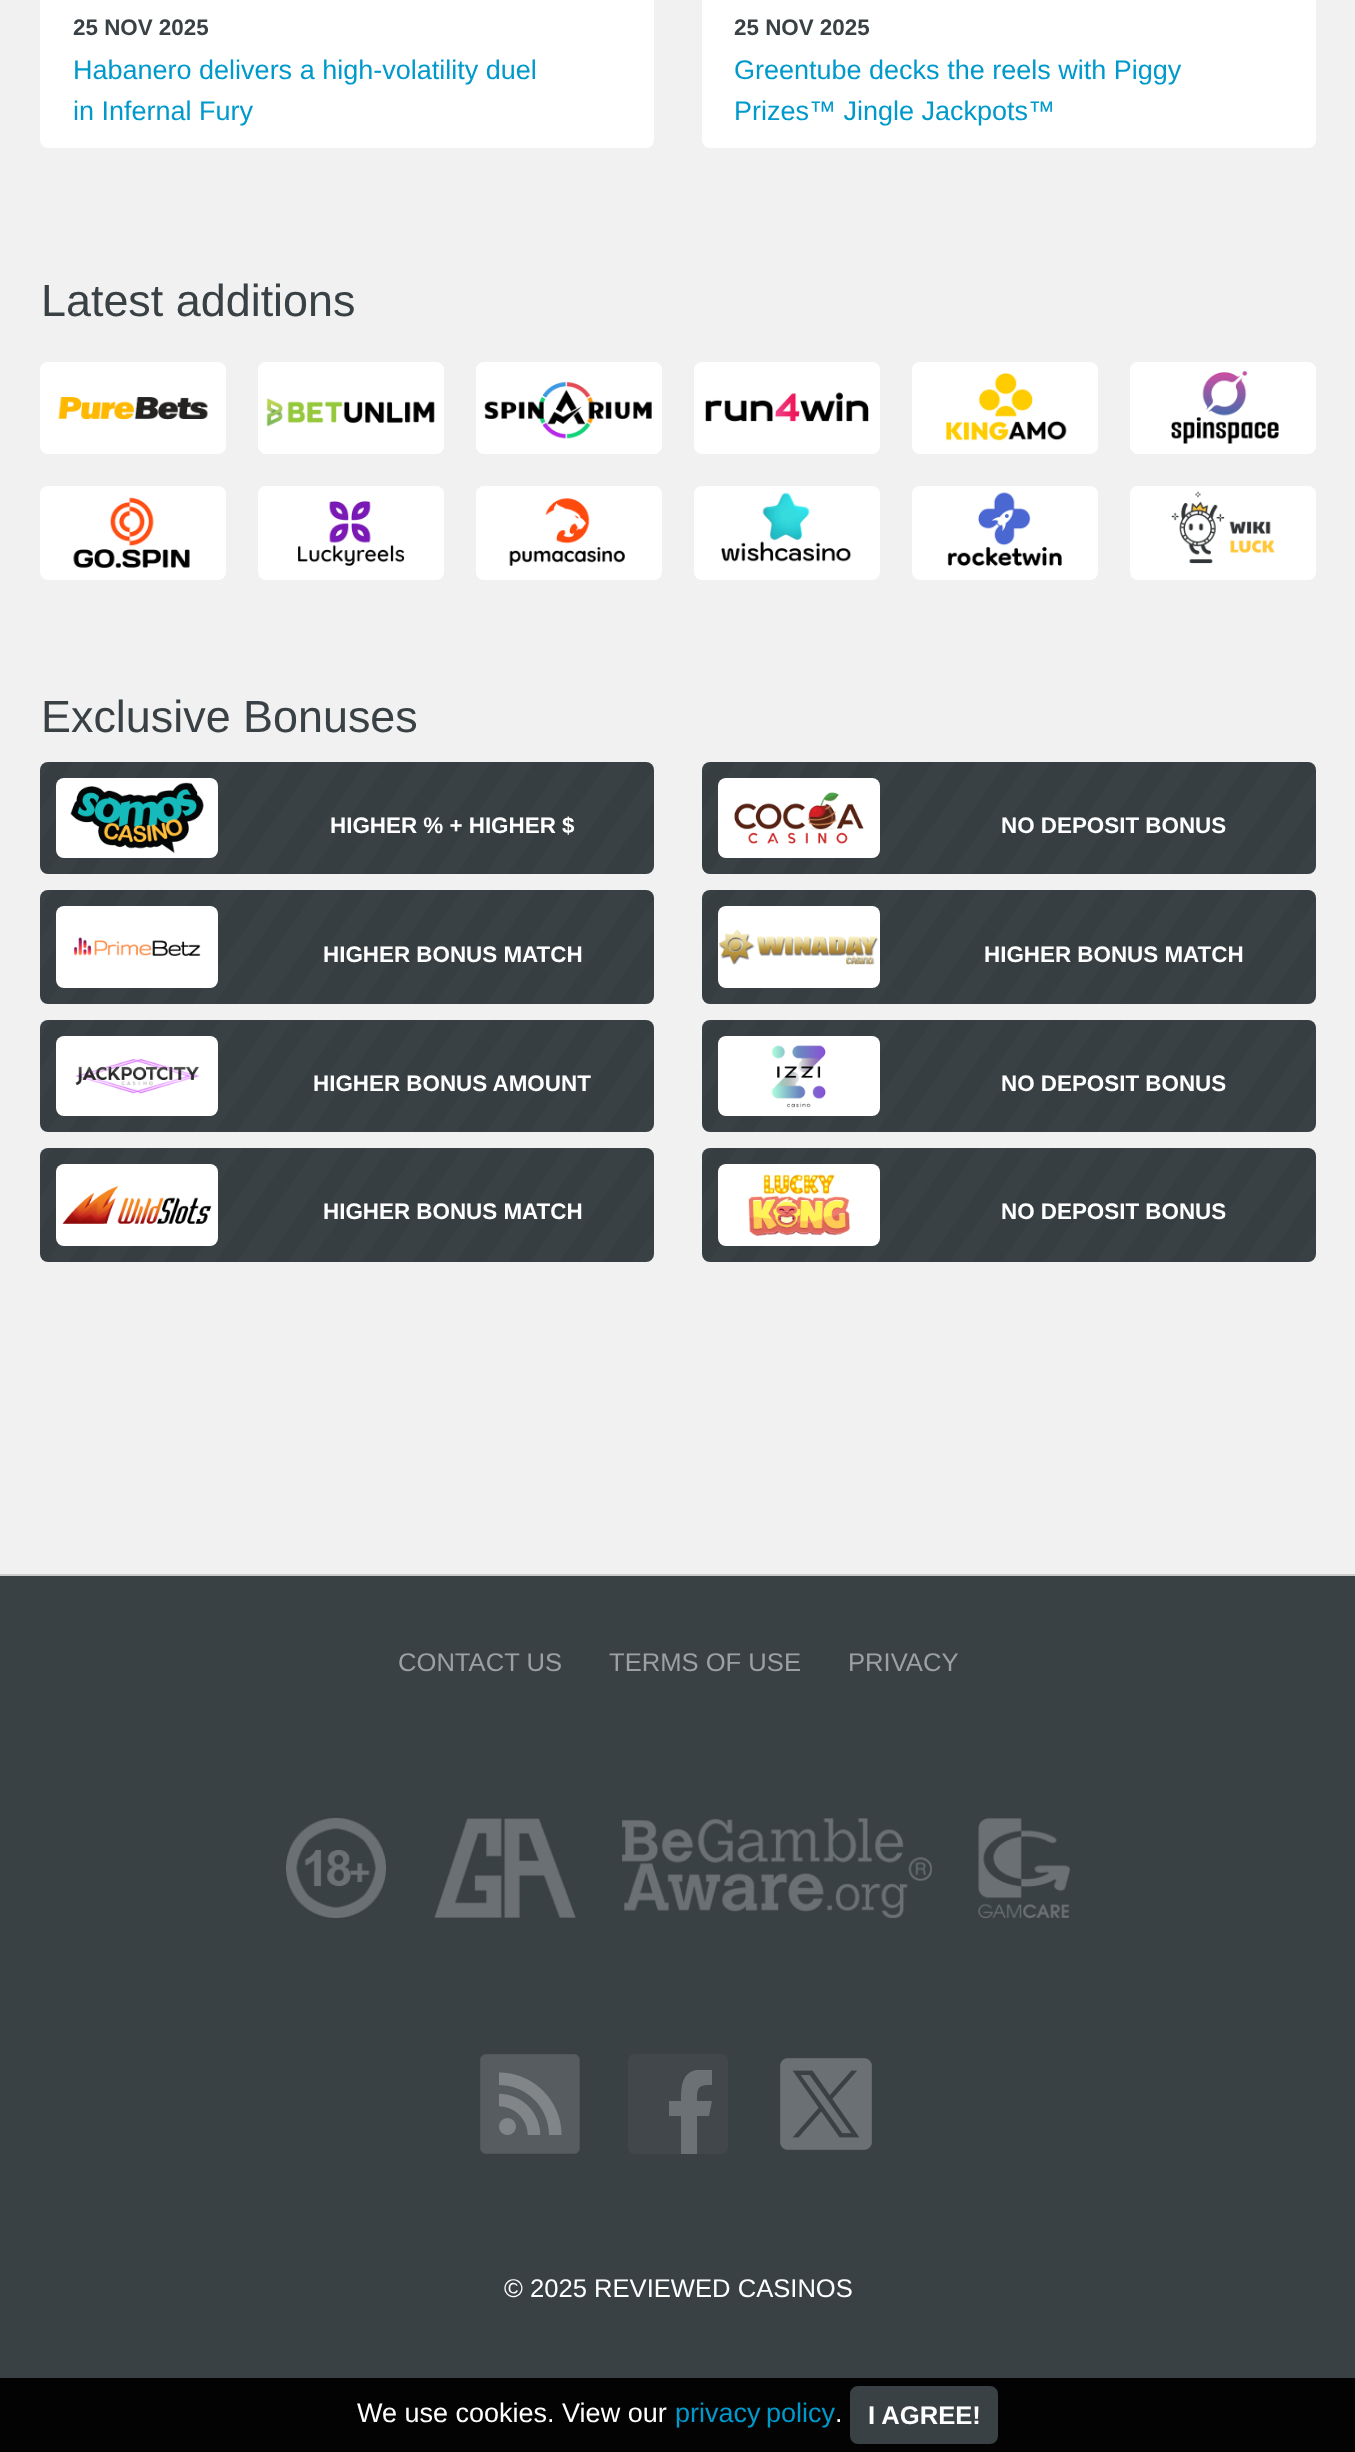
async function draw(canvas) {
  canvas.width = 1355;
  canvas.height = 2452;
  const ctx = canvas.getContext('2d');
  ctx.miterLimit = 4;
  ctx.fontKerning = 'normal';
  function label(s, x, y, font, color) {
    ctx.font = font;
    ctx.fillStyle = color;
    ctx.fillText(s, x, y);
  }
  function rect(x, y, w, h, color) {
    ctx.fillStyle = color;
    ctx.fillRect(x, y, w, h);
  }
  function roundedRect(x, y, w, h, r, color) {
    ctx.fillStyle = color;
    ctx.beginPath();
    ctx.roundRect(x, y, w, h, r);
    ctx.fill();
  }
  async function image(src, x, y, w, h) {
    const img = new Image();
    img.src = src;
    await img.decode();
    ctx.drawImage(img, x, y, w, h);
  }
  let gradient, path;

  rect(0, 0, 1355, 2452, '#f1f1f1');
  roundedRect(40, -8, 614, 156, 8, '#fff');
  label('25 NOV 2025', 73, 35, 'bold 22.4px Liberation Sans', '#394145');
  label('Habanero delivers a high-volatility duel', 73, 79, '27px Liberation Sans', '#09c');
  label('in Infernal Fury', 73, 120, '27px Liberation Sans', '#09c');
  roundedRect(702, -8, 614, 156, 8, '#fff');
  label('25 NOV 2025', 734, 35, 'bold 22.4px Liberation Sans', '#394145');
  label('Greentube decks the reels with Piggy', 734, 79, '27px Liberation Sans', '#09c');
  label('Prizes™ Jingle Jackpots™', 734, 120, '27px Liberation Sans', '#09c');
  label('Latest additions', 41, 316, '44.9px Liberation Sans', '#394145');
  await image('assets/img1.png', 40, 362, 186, 92);
  await image('assets/img2.png', 258, 362, 186, 92);
  await image('assets/img3.png', 476, 362, 186, 92);
  await image('assets/img4.png', 694, 362, 186, 92);
  await image('assets/img5.png', 912, 362, 186, 92);
  await image('assets/img6.png', 1130, 362, 186, 92);
  await image('assets/img7.png', 40, 486, 186, 94);
  await image('assets/img8.png', 258, 486, 186, 94);
  await image('assets/img9.png', 476, 486, 186, 94);
  await image('assets/img10.png', 694, 486, 186, 94);
  await image('assets/img11.png', 912, 486, 186, 94);
  await image('assets/img12.png', 1130, 486, 186, 94);
  label('Exclusive Bonuses', 41, 732, '44.9px Liberation Sans', '#394145');
  gradient = ctx.createLinearGradient(579, 981, 88, 637);
  gradient.addColorStop(0, '#394145');
  gradient.addColorStop(0.03, '#394145');
  gradient.addColorStop(0.03, '#363e42');
  gradient.addColorStop(0.07, '#363e42');
  gradient.addColorStop(0.07, '#394145');
  gradient.addColorStop(0.1, '#394145');
  gradient.addColorStop(0.1, '#363e42');
  gradient.addColorStop(0.13, '#363e42');
  gradient.addColorStop(0.13, '#394145');
  gradient.addColorStop(0.17, '#394145');
  gradient.addColorStop(0.17, '#363e42');
  gradient.addColorStop(0.2, '#363e42');
  gradient.addColorStop(0.2, '#394145');
  gradient.addColorStop(0.23, '#394145');
  gradient.addColorStop(0.23, '#363e42');
  gradient.addColorStop(0.27, '#363e42');
  gradient.addColorStop(0.27, '#394145');
  gradient.addColorStop(0.3, '#394145');
  gradient.addColorStop(0.3, '#363e42');
  gradient.addColorStop(0.33, '#363e42');
  gradient.addColorStop(0.33, '#394145');
  gradient.addColorStop(0.37, '#394145');
  gradient.addColorStop(0.37, '#363e42');
  gradient.addColorStop(0.4, '#363e42');
  gradient.addColorStop(0.4, '#394145');
  gradient.addColorStop(0.43, '#394145');
  gradient.addColorStop(0.43, '#363e42');
  gradient.addColorStop(0.47, '#363e42');
  gradient.addColorStop(0.47, '#394145');
  gradient.addColorStop(0.5, '#394145');
  gradient.addColorStop(0.5, '#363e42');
  gradient.addColorStop(0.53, '#363e42');
  gradient.addColorStop(0.53, '#394145');
  gradient.addColorStop(0.57, '#394145');
  gradient.addColorStop(0.57, '#363e42');
  gradient.addColorStop(0.6, '#363e42');
  gradient.addColorStop(0.6, '#394145');
  gradient.addColorStop(0.63, '#394145');
  gradient.addColorStop(0.63, '#363e42');
  gradient.addColorStop(0.67, '#363e42');
  gradient.addColorStop(0.67, '#394145');
  gradient.addColorStop(0.7, '#394145');
  gradient.addColorStop(0.7, '#363e42');
  gradient.addColorStop(0.73, '#363e42');
  gradient.addColorStop(0.73, '#394145');
  gradient.addColorStop(0.77, '#394145');
  gradient.addColorStop(0.77, '#363e42');
  gradient.addColorStop(0.8, '#363e42');
  gradient.addColorStop(0.8, '#394145');
  gradient.addColorStop(0.83, '#394145');
  gradient.addColorStop(0.83, '#363e42');
  gradient.addColorStop(0.87, '#363e42');
  gradient.addColorStop(0.87, '#394145');
  gradient.addColorStop(0.9, '#394145');
  gradient.addColorStop(0.9, '#363e42');
  gradient.addColorStop(0.93, '#363e42');
  gradient.addColorStop(0.93, '#394145');
  gradient.addColorStop(0.97, '#394145');
  gradient.addColorStop(0.97, '#363e42');
  gradient.addColorStop(1, '#363e42');
  ctx.fillStyle = gradient;
  ctx.beginPath();
  ctx.roundRect(40, 762, 614, 112, 8);
  ctx.fill();
  await image('assets/img13.png', 56, 778, 162, 80);
  label('HIGHER % + HIGHER $', 330, 833, 'bold 22.4px Liberation Sans', '#fff');
  gradient = ctx.createLinearGradient(1241, 981, 750, 637);
  gradient.addColorStop(0, '#394145');
  gradient.addColorStop(0.03, '#394145');
  gradient.addColorStop(0.03, '#363e42');
  gradient.addColorStop(0.07, '#363e42');
  gradient.addColorStop(0.07, '#394145');
  gradient.addColorStop(0.1, '#394145');
  gradient.addColorStop(0.1, '#363e42');
  gradient.addColorStop(0.13, '#363e42');
  gradient.addColorStop(0.13, '#394145');
  gradient.addColorStop(0.17, '#394145');
  gradient.addColorStop(0.17, '#363e42');
  gradient.addColorStop(0.2, '#363e42');
  gradient.addColorStop(0.2, '#394145');
  gradient.addColorStop(0.23, '#394145');
  gradient.addColorStop(0.23, '#363e42');
  gradient.addColorStop(0.27, '#363e42');
  gradient.addColorStop(0.27, '#394145');
  gradient.addColorStop(0.3, '#394145');
  gradient.addColorStop(0.3, '#363e42');
  gradient.addColorStop(0.33, '#363e42');
  gradient.addColorStop(0.33, '#394145');
  gradient.addColorStop(0.37, '#394145');
  gradient.addColorStop(0.37, '#363e42');
  gradient.addColorStop(0.4, '#363e42');
  gradient.addColorStop(0.4, '#394145');
  gradient.addColorStop(0.43, '#394145');
  gradient.addColorStop(0.43, '#363e42');
  gradient.addColorStop(0.47, '#363e42');
  gradient.addColorStop(0.47, '#394145');
  gradient.addColorStop(0.5, '#394145');
  gradient.addColorStop(0.5, '#363e42');
  gradient.addColorStop(0.53, '#363e42');
  gradient.addColorStop(0.53, '#394145');
  gradient.addColorStop(0.57, '#394145');
  gradient.addColorStop(0.57, '#363e42');
  gradient.addColorStop(0.6, '#363e42');
  gradient.addColorStop(0.6, '#394145');
  gradient.addColorStop(0.63, '#394145');
  gradient.addColorStop(0.63, '#363e42');
  gradient.addColorStop(0.67, '#363e42');
  gradient.addColorStop(0.67, '#394145');
  gradient.addColorStop(0.7, '#394145');
  gradient.addColorStop(0.7, '#363e42');
  gradient.addColorStop(0.73, '#363e42');
  gradient.addColorStop(0.73, '#394145');
  gradient.addColorStop(0.77, '#394145');
  gradient.addColorStop(0.77, '#363e42');
  gradient.addColorStop(0.8, '#363e42');
  gradient.addColorStop(0.8, '#394145');
  gradient.addColorStop(0.83, '#394145');
  gradient.addColorStop(0.83, '#363e42');
  gradient.addColorStop(0.87, '#363e42');
  gradient.addColorStop(0.87, '#394145');
  gradient.addColorStop(0.9, '#394145');
  gradient.addColorStop(0.9, '#363e42');
  gradient.addColorStop(0.93, '#363e42');
  gradient.addColorStop(0.93, '#394145');
  gradient.addColorStop(0.97, '#394145');
  gradient.addColorStop(0.97, '#363e42');
  gradient.addColorStop(1, '#363e42');
  ctx.fillStyle = gradient;
  ctx.beginPath();
  ctx.roundRect(702, 762, 614, 112, 8);
  ctx.fill();
  await image('assets/img14.png', 718, 778, 162, 80);
  label('NO DEPOSIT BONUS', 1001, 833, 'bold 22.4px Liberation Sans', '#fff');
  gradient = ctx.createLinearGradient(580, 1110, 88, 766);
  gradient.addColorStop(0, '#394145');
  gradient.addColorStop(0.03, '#394145');
  gradient.addColorStop(0.03, '#363e42');
  gradient.addColorStop(0.07, '#363e42');
  gradient.addColorStop(0.07, '#394145');
  gradient.addColorStop(0.1, '#394145');
  gradient.addColorStop(0.1, '#363e42');
  gradient.addColorStop(0.13, '#363e42');
  gradient.addColorStop(0.13, '#394145');
  gradient.addColorStop(0.17, '#394145');
  gradient.addColorStop(0.17, '#363e42');
  gradient.addColorStop(0.2, '#363e42');
  gradient.addColorStop(0.2, '#394145');
  gradient.addColorStop(0.23, '#394145');
  gradient.addColorStop(0.23, '#363e42');
  gradient.addColorStop(0.27, '#363e42');
  gradient.addColorStop(0.27, '#394145');
  gradient.addColorStop(0.3, '#394145');
  gradient.addColorStop(0.3, '#363e42');
  gradient.addColorStop(0.33, '#363e42');
  gradient.addColorStop(0.33, '#394145');
  gradient.addColorStop(0.37, '#394145');
  gradient.addColorStop(0.37, '#363e42');
  gradient.addColorStop(0.4, '#363e42');
  gradient.addColorStop(0.4, '#394145');
  gradient.addColorStop(0.43, '#394145');
  gradient.addColorStop(0.43, '#363e42');
  gradient.addColorStop(0.47, '#363e42');
  gradient.addColorStop(0.47, '#394145');
  gradient.addColorStop(0.5, '#394145');
  gradient.addColorStop(0.5, '#363e42');
  gradient.addColorStop(0.53, '#363e42');
  gradient.addColorStop(0.53, '#394145');
  gradient.addColorStop(0.57, '#394145');
  gradient.addColorStop(0.57, '#363e42');
  gradient.addColorStop(0.6, '#363e42');
  gradient.addColorStop(0.6, '#394145');
  gradient.addColorStop(0.63, '#394145');
  gradient.addColorStop(0.63, '#363e42');
  gradient.addColorStop(0.67, '#363e42');
  gradient.addColorStop(0.67, '#394145');
  gradient.addColorStop(0.7, '#394145');
  gradient.addColorStop(0.7, '#363e42');
  gradient.addColorStop(0.73, '#363e42');
  gradient.addColorStop(0.73, '#394145');
  gradient.addColorStop(0.77, '#394145');
  gradient.addColorStop(0.77, '#363e42');
  gradient.addColorStop(0.8, '#363e42');
  gradient.addColorStop(0.8, '#394145');
  gradient.addColorStop(0.83, '#394145');
  gradient.addColorStop(0.83, '#363e42');
  gradient.addColorStop(0.87, '#363e42');
  gradient.addColorStop(0.87, '#394145');
  gradient.addColorStop(0.9, '#394145');
  gradient.addColorStop(0.9, '#363e42');
  gradient.addColorStop(0.93, '#363e42');
  gradient.addColorStop(0.93, '#394145');
  gradient.addColorStop(0.97, '#394145');
  gradient.addColorStop(0.97, '#363e42');
  gradient.addColorStop(1, '#363e42');
  ctx.fillStyle = gradient;
  ctx.beginPath();
  ctx.roundRect(40, 890, 614, 114, 8);
  ctx.fill();
  await image('assets/img15.png', 56, 906, 162, 82);
  label('HIGHER BONUS MATCH', 323, 962, 'bold 22.4px Liberation Sans', '#fff');
  gradient = ctx.createLinearGradient(1242, 1110, 750, 766);
  gradient.addColorStop(0, '#394145');
  gradient.addColorStop(0.03, '#394145');
  gradient.addColorStop(0.03, '#363e42');
  gradient.addColorStop(0.07, '#363e42');
  gradient.addColorStop(0.07, '#394145');
  gradient.addColorStop(0.1, '#394145');
  gradient.addColorStop(0.1, '#363e42');
  gradient.addColorStop(0.13, '#363e42');
  gradient.addColorStop(0.13, '#394145');
  gradient.addColorStop(0.17, '#394145');
  gradient.addColorStop(0.17, '#363e42');
  gradient.addColorStop(0.2, '#363e42');
  gradient.addColorStop(0.2, '#394145');
  gradient.addColorStop(0.23, '#394145');
  gradient.addColorStop(0.23, '#363e42');
  gradient.addColorStop(0.27, '#363e42');
  gradient.addColorStop(0.27, '#394145');
  gradient.addColorStop(0.3, '#394145');
  gradient.addColorStop(0.3, '#363e42');
  gradient.addColorStop(0.33, '#363e42');
  gradient.addColorStop(0.33, '#394145');
  gradient.addColorStop(0.37, '#394145');
  gradient.addColorStop(0.37, '#363e42');
  gradient.addColorStop(0.4, '#363e42');
  gradient.addColorStop(0.4, '#394145');
  gradient.addColorStop(0.43, '#394145');
  gradient.addColorStop(0.43, '#363e42');
  gradient.addColorStop(0.47, '#363e42');
  gradient.addColorStop(0.47, '#394145');
  gradient.addColorStop(0.5, '#394145');
  gradient.addColorStop(0.5, '#363e42');
  gradient.addColorStop(0.53, '#363e42');
  gradient.addColorStop(0.53, '#394145');
  gradient.addColorStop(0.57, '#394145');
  gradient.addColorStop(0.57, '#363e42');
  gradient.addColorStop(0.6, '#363e42');
  gradient.addColorStop(0.6, '#394145');
  gradient.addColorStop(0.63, '#394145');
  gradient.addColorStop(0.63, '#363e42');
  gradient.addColorStop(0.67, '#363e42');
  gradient.addColorStop(0.67, '#394145');
  gradient.addColorStop(0.7, '#394145');
  gradient.addColorStop(0.7, '#363e42');
  gradient.addColorStop(0.73, '#363e42');
  gradient.addColorStop(0.73, '#394145');
  gradient.addColorStop(0.77, '#394145');
  gradient.addColorStop(0.77, '#363e42');
  gradient.addColorStop(0.8, '#363e42');
  gradient.addColorStop(0.8, '#394145');
  gradient.addColorStop(0.83, '#394145');
  gradient.addColorStop(0.83, '#363e42');
  gradient.addColorStop(0.87, '#363e42');
  gradient.addColorStop(0.87, '#394145');
  gradient.addColorStop(0.9, '#394145');
  gradient.addColorStop(0.9, '#363e42');
  gradient.addColorStop(0.93, '#363e42');
  gradient.addColorStop(0.93, '#394145');
  gradient.addColorStop(0.97, '#394145');
  gradient.addColorStop(0.97, '#363e42');
  gradient.addColorStop(1, '#363e42');
  ctx.fillStyle = gradient;
  ctx.beginPath();
  ctx.roundRect(702, 890, 614, 114, 8);
  ctx.fill();
  await image('assets/img16.png', 718, 906, 162, 82);
  label('HIGHER BONUS MATCH', 984, 962, 'bold 22.4px Liberation Sans', '#fff');
  gradient = ctx.createLinearGradient(579, 1239, 88, 895);
  gradient.addColorStop(0, '#394145');
  gradient.addColorStop(0.03, '#394145');
  gradient.addColorStop(0.03, '#363e42');
  gradient.addColorStop(0.07, '#363e42');
  gradient.addColorStop(0.07, '#394145');
  gradient.addColorStop(0.1, '#394145');
  gradient.addColorStop(0.1, '#363e42');
  gradient.addColorStop(0.13, '#363e42');
  gradient.addColorStop(0.13, '#394145');
  gradient.addColorStop(0.17, '#394145');
  gradient.addColorStop(0.17, '#363e42');
  gradient.addColorStop(0.2, '#363e42');
  gradient.addColorStop(0.2, '#394145');
  gradient.addColorStop(0.23, '#394145');
  gradient.addColorStop(0.23, '#363e42');
  gradient.addColorStop(0.27, '#363e42');
  gradient.addColorStop(0.27, '#394145');
  gradient.addColorStop(0.3, '#394145');
  gradient.addColorStop(0.3, '#363e42');
  gradient.addColorStop(0.33, '#363e42');
  gradient.addColorStop(0.33, '#394145');
  gradient.addColorStop(0.37, '#394145');
  gradient.addColorStop(0.37, '#363e42');
  gradient.addColorStop(0.4, '#363e42');
  gradient.addColorStop(0.4, '#394145');
  gradient.addColorStop(0.43, '#394145');
  gradient.addColorStop(0.43, '#363e42');
  gradient.addColorStop(0.47, '#363e42');
  gradient.addColorStop(0.47, '#394145');
  gradient.addColorStop(0.5, '#394145');
  gradient.addColorStop(0.5, '#363e42');
  gradient.addColorStop(0.53, '#363e42');
  gradient.addColorStop(0.53, '#394145');
  gradient.addColorStop(0.57, '#394145');
  gradient.addColorStop(0.57, '#363e42');
  gradient.addColorStop(0.6, '#363e42');
  gradient.addColorStop(0.6, '#394145');
  gradient.addColorStop(0.63, '#394145');
  gradient.addColorStop(0.63, '#363e42');
  gradient.addColorStop(0.67, '#363e42');
  gradient.addColorStop(0.67, '#394145');
  gradient.addColorStop(0.7, '#394145');
  gradient.addColorStop(0.7, '#363e42');
  gradient.addColorStop(0.73, '#363e42');
  gradient.addColorStop(0.73, '#394145');
  gradient.addColorStop(0.77, '#394145');
  gradient.addColorStop(0.77, '#363e42');
  gradient.addColorStop(0.8, '#363e42');
  gradient.addColorStop(0.8, '#394145');
  gradient.addColorStop(0.83, '#394145');
  gradient.addColorStop(0.83, '#363e42');
  gradient.addColorStop(0.87, '#363e42');
  gradient.addColorStop(0.87, '#394145');
  gradient.addColorStop(0.9, '#394145');
  gradient.addColorStop(0.9, '#363e42');
  gradient.addColorStop(0.93, '#363e42');
  gradient.addColorStop(0.93, '#394145');
  gradient.addColorStop(0.97, '#394145');
  gradient.addColorStop(0.97, '#363e42');
  gradient.addColorStop(1, '#363e42');
  ctx.fillStyle = gradient;
  ctx.beginPath();
  ctx.roundRect(40, 1020, 614, 112, 8);
  ctx.fill();
  await image('assets/img17.png', 56, 1036, 162, 80);
  label('HIGHER BONUS AMOUNT', 313, 1091, 'bold 22.4px Liberation Sans', '#fff');
  gradient = ctx.createLinearGradient(1241, 1239, 750, 895);
  gradient.addColorStop(0, '#394145');
  gradient.addColorStop(0.03, '#394145');
  gradient.addColorStop(0.03, '#363e42');
  gradient.addColorStop(0.07, '#363e42');
  gradient.addColorStop(0.07, '#394145');
  gradient.addColorStop(0.1, '#394145');
  gradient.addColorStop(0.1, '#363e42');
  gradient.addColorStop(0.13, '#363e42');
  gradient.addColorStop(0.13, '#394145');
  gradient.addColorStop(0.17, '#394145');
  gradient.addColorStop(0.17, '#363e42');
  gradient.addColorStop(0.2, '#363e42');
  gradient.addColorStop(0.2, '#394145');
  gradient.addColorStop(0.23, '#394145');
  gradient.addColorStop(0.23, '#363e42');
  gradient.addColorStop(0.27, '#363e42');
  gradient.addColorStop(0.27, '#394145');
  gradient.addColorStop(0.3, '#394145');
  gradient.addColorStop(0.3, '#363e42');
  gradient.addColorStop(0.33, '#363e42');
  gradient.addColorStop(0.33, '#394145');
  gradient.addColorStop(0.37, '#394145');
  gradient.addColorStop(0.37, '#363e42');
  gradient.addColorStop(0.4, '#363e42');
  gradient.addColorStop(0.4, '#394145');
  gradient.addColorStop(0.43, '#394145');
  gradient.addColorStop(0.43, '#363e42');
  gradient.addColorStop(0.47, '#363e42');
  gradient.addColorStop(0.47, '#394145');
  gradient.addColorStop(0.5, '#394145');
  gradient.addColorStop(0.5, '#363e42');
  gradient.addColorStop(0.53, '#363e42');
  gradient.addColorStop(0.53, '#394145');
  gradient.addColorStop(0.57, '#394145');
  gradient.addColorStop(0.57, '#363e42');
  gradient.addColorStop(0.6, '#363e42');
  gradient.addColorStop(0.6, '#394145');
  gradient.addColorStop(0.63, '#394145');
  gradient.addColorStop(0.63, '#363e42');
  gradient.addColorStop(0.67, '#363e42');
  gradient.addColorStop(0.67, '#394145');
  gradient.addColorStop(0.7, '#394145');
  gradient.addColorStop(0.7, '#363e42');
  gradient.addColorStop(0.73, '#363e42');
  gradient.addColorStop(0.73, '#394145');
  gradient.addColorStop(0.77, '#394145');
  gradient.addColorStop(0.77, '#363e42');
  gradient.addColorStop(0.8, '#363e42');
  gradient.addColorStop(0.8, '#394145');
  gradient.addColorStop(0.83, '#394145');
  gradient.addColorStop(0.83, '#363e42');
  gradient.addColorStop(0.87, '#363e42');
  gradient.addColorStop(0.87, '#394145');
  gradient.addColorStop(0.9, '#394145');
  gradient.addColorStop(0.9, '#363e42');
  gradient.addColorStop(0.93, '#363e42');
  gradient.addColorStop(0.93, '#394145');
  gradient.addColorStop(0.97, '#394145');
  gradient.addColorStop(0.97, '#363e42');
  gradient.addColorStop(1, '#363e42');
  ctx.fillStyle = gradient;
  ctx.beginPath();
  ctx.roundRect(702, 1020, 614, 112, 8);
  ctx.fill();
  await image('assets/img18.png', 718, 1036, 162, 80);
  label('NO DEPOSIT BONUS', 1001, 1091, 'bold 22.4px Liberation Sans', '#fff');
  gradient = ctx.createLinearGradient(580, 1368, 88, 1024);
  gradient.addColorStop(0, '#394145');
  gradient.addColorStop(0.03, '#394145');
  gradient.addColorStop(0.03, '#363e42');
  gradient.addColorStop(0.07, '#363e42');
  gradient.addColorStop(0.07, '#394145');
  gradient.addColorStop(0.1, '#394145');
  gradient.addColorStop(0.1, '#363e42');
  gradient.addColorStop(0.13, '#363e42');
  gradient.addColorStop(0.13, '#394145');
  gradient.addColorStop(0.17, '#394145');
  gradient.addColorStop(0.17, '#363e42');
  gradient.addColorStop(0.2, '#363e42');
  gradient.addColorStop(0.2, '#394145');
  gradient.addColorStop(0.23, '#394145');
  gradient.addColorStop(0.23, '#363e42');
  gradient.addColorStop(0.27, '#363e42');
  gradient.addColorStop(0.27, '#394145');
  gradient.addColorStop(0.3, '#394145');
  gradient.addColorStop(0.3, '#363e42');
  gradient.addColorStop(0.33, '#363e42');
  gradient.addColorStop(0.33, '#394145');
  gradient.addColorStop(0.37, '#394145');
  gradient.addColorStop(0.37, '#363e42');
  gradient.addColorStop(0.4, '#363e42');
  gradient.addColorStop(0.4, '#394145');
  gradient.addColorStop(0.43, '#394145');
  gradient.addColorStop(0.43, '#363e42');
  gradient.addColorStop(0.47, '#363e42');
  gradient.addColorStop(0.47, '#394145');
  gradient.addColorStop(0.5, '#394145');
  gradient.addColorStop(0.5, '#363e42');
  gradient.addColorStop(0.53, '#363e42');
  gradient.addColorStop(0.53, '#394145');
  gradient.addColorStop(0.57, '#394145');
  gradient.addColorStop(0.57, '#363e42');
  gradient.addColorStop(0.6, '#363e42');
  gradient.addColorStop(0.6, '#394145');
  gradient.addColorStop(0.63, '#394145');
  gradient.addColorStop(0.63, '#363e42');
  gradient.addColorStop(0.67, '#363e42');
  gradient.addColorStop(0.67, '#394145');
  gradient.addColorStop(0.7, '#394145');
  gradient.addColorStop(0.7, '#363e42');
  gradient.addColorStop(0.73, '#363e42');
  gradient.addColorStop(0.73, '#394145');
  gradient.addColorStop(0.77, '#394145');
  gradient.addColorStop(0.77, '#363e42');
  gradient.addColorStop(0.8, '#363e42');
  gradient.addColorStop(0.8, '#394145');
  gradient.addColorStop(0.83, '#394145');
  gradient.addColorStop(0.83, '#363e42');
  gradient.addColorStop(0.87, '#363e42');
  gradient.addColorStop(0.87, '#394145');
  gradient.addColorStop(0.9, '#394145');
  gradient.addColorStop(0.9, '#363e42');
  gradient.addColorStop(0.93, '#363e42');
  gradient.addColorStop(0.93, '#394145');
  gradient.addColorStop(0.97, '#394145');
  gradient.addColorStop(0.97, '#363e42');
  gradient.addColorStop(1, '#363e42');
  ctx.fillStyle = gradient;
  ctx.beginPath();
  ctx.roundRect(40, 1148, 614, 114, 8);
  ctx.fill();
  await image('assets/img19.png', 56, 1164, 162, 82);
  label('HIGHER BONUS MATCH', 323, 1219, 'bold 22.4px Liberation Sans', '#fff');
  gradient = ctx.createLinearGradient(1242, 1368, 750, 1024);
  gradient.addColorStop(0, '#394145');
  gradient.addColorStop(0.03, '#394145');
  gradient.addColorStop(0.03, '#363e42');
  gradient.addColorStop(0.07, '#363e42');
  gradient.addColorStop(0.07, '#394145');
  gradient.addColorStop(0.1, '#394145');
  gradient.addColorStop(0.1, '#363e42');
  gradient.addColorStop(0.13, '#363e42');
  gradient.addColorStop(0.13, '#394145');
  gradient.addColorStop(0.17, '#394145');
  gradient.addColorStop(0.17, '#363e42');
  gradient.addColorStop(0.2, '#363e42');
  gradient.addColorStop(0.2, '#394145');
  gradient.addColorStop(0.23, '#394145');
  gradient.addColorStop(0.23, '#363e42');
  gradient.addColorStop(0.27, '#363e42');
  gradient.addColorStop(0.27, '#394145');
  gradient.addColorStop(0.3, '#394145');
  gradient.addColorStop(0.3, '#363e42');
  gradient.addColorStop(0.33, '#363e42');
  gradient.addColorStop(0.33, '#394145');
  gradient.addColorStop(0.37, '#394145');
  gradient.addColorStop(0.37, '#363e42');
  gradient.addColorStop(0.4, '#363e42');
  gradient.addColorStop(0.4, '#394145');
  gradient.addColorStop(0.43, '#394145');
  gradient.addColorStop(0.43, '#363e42');
  gradient.addColorStop(0.47, '#363e42');
  gradient.addColorStop(0.47, '#394145');
  gradient.addColorStop(0.5, '#394145');
  gradient.addColorStop(0.5, '#363e42');
  gradient.addColorStop(0.53, '#363e42');
  gradient.addColorStop(0.53, '#394145');
  gradient.addColorStop(0.57, '#394145');
  gradient.addColorStop(0.57, '#363e42');
  gradient.addColorStop(0.6, '#363e42');
  gradient.addColorStop(0.6, '#394145');
  gradient.addColorStop(0.63, '#394145');
  gradient.addColorStop(0.63, '#363e42');
  gradient.addColorStop(0.67, '#363e42');
  gradient.addColorStop(0.67, '#394145');
  gradient.addColorStop(0.7, '#394145');
  gradient.addColorStop(0.7, '#363e42');
  gradient.addColorStop(0.73, '#363e42');
  gradient.addColorStop(0.73, '#394145');
  gradient.addColorStop(0.77, '#394145');
  gradient.addColorStop(0.77, '#363e42');
  gradient.addColorStop(0.8, '#363e42');
  gradient.addColorStop(0.8, '#394145');
  gradient.addColorStop(0.83, '#394145');
  gradient.addColorStop(0.83, '#363e42');
  gradient.addColorStop(0.87, '#363e42');
  gradient.addColorStop(0.87, '#394145');
  gradient.addColorStop(0.9, '#394145');
  gradient.addColorStop(0.9, '#363e42');
  gradient.addColorStop(0.93, '#363e42');
  gradient.addColorStop(0.93, '#394145');
  gradient.addColorStop(0.97, '#394145');
  gradient.addColorStop(0.97, '#363e42');
  gradient.addColorStop(1, '#363e42');
  ctx.fillStyle = gradient;
  ctx.beginPath();
  ctx.roundRect(702, 1148, 614, 114, 8);
  ctx.fill();
  await image('assets/img20.png', 718, 1164, 162, 82);
  label('NO DEPOSIT BONUS', 1001, 1219, 'bold 22.4px Liberation Sans', '#fff');
  rect(0, 1576, 1355, 802, '#394145');
  rect(0, 1574, 1355, 2, '#ccc');
  label('CONTACT US', 398, 1671, '25.6px Liberation Sans', '#9ca0a2');
  label('TERMS OF USE', 609, 1671, '25.6px Liberation Sans', '#9ca0a2');
  label('PRIVACY', 848, 1671, '25.6px Liberation Sans', '#9ca0a2');
  await image('assets/img21.png', 286, 1818, 100, 100);
  await image('assets/img22.png', 434, 1818, 142, 100);
  await image('assets/img23.png', 622, 1818, 310, 100);
  await image('assets/img24.png', 978, 1818, 92, 100);
  await image('assets/img25.png', 480, 2054, 100, 100);
  ctx.fillStyle = '#41474a';
  path = new Path2D('M728 2148C728 2151 725 2154 722 2154H634C631 2154 628 2151 628 2148V2060C628 2057 631 2054 634 2054H722C725 2054 728 2057 728 2060Z');
  ctx.fill(path);
  ctx.fillStyle = '#6b7174';
  path = new Path2D('M697 2154V2116H709L712 2101H697C697 2087 698 2085 712 2085V2070H696C681 2073 681 2089 681 2101H669V2116H681V2154Z');
  ctx.fill(path);
  await image('assets/img26.png', 780, 2058, 92, 92);
  label('© 2025 REVIEWED CASINOS', 504, 2297, '25.6px Liberation Sans', '#fff');
  rect(0, 2378, 1355, 74, '#030303');
  label('We use cookies. View our', 357, 2422, '27px Liberation Sans', '#fff');
  ctx.wordSpacing = '-2px';
  label('privacy policy', 675, 2422, '27px Liberation Sans', '#09c');
  ctx.wordSpacing = '0px';
  label('.', 835, 2422, '27px Liberation Sans', '#fff');
  ctx.fillStyle = '#394145';
  ctx.beginPath();
  ctx.roundRect(851, 2387, 146, 56, 7);
  ctx.fill();
  ctx.strokeStyle = '#394145';
  ctx.lineWidth = 2;
  ctx.stroke();
  label('I AGREE!', 868, 2424, 'bold 25.6px Liberation Sans', '#fff');
}

draw(document.querySelector('canvas'));
